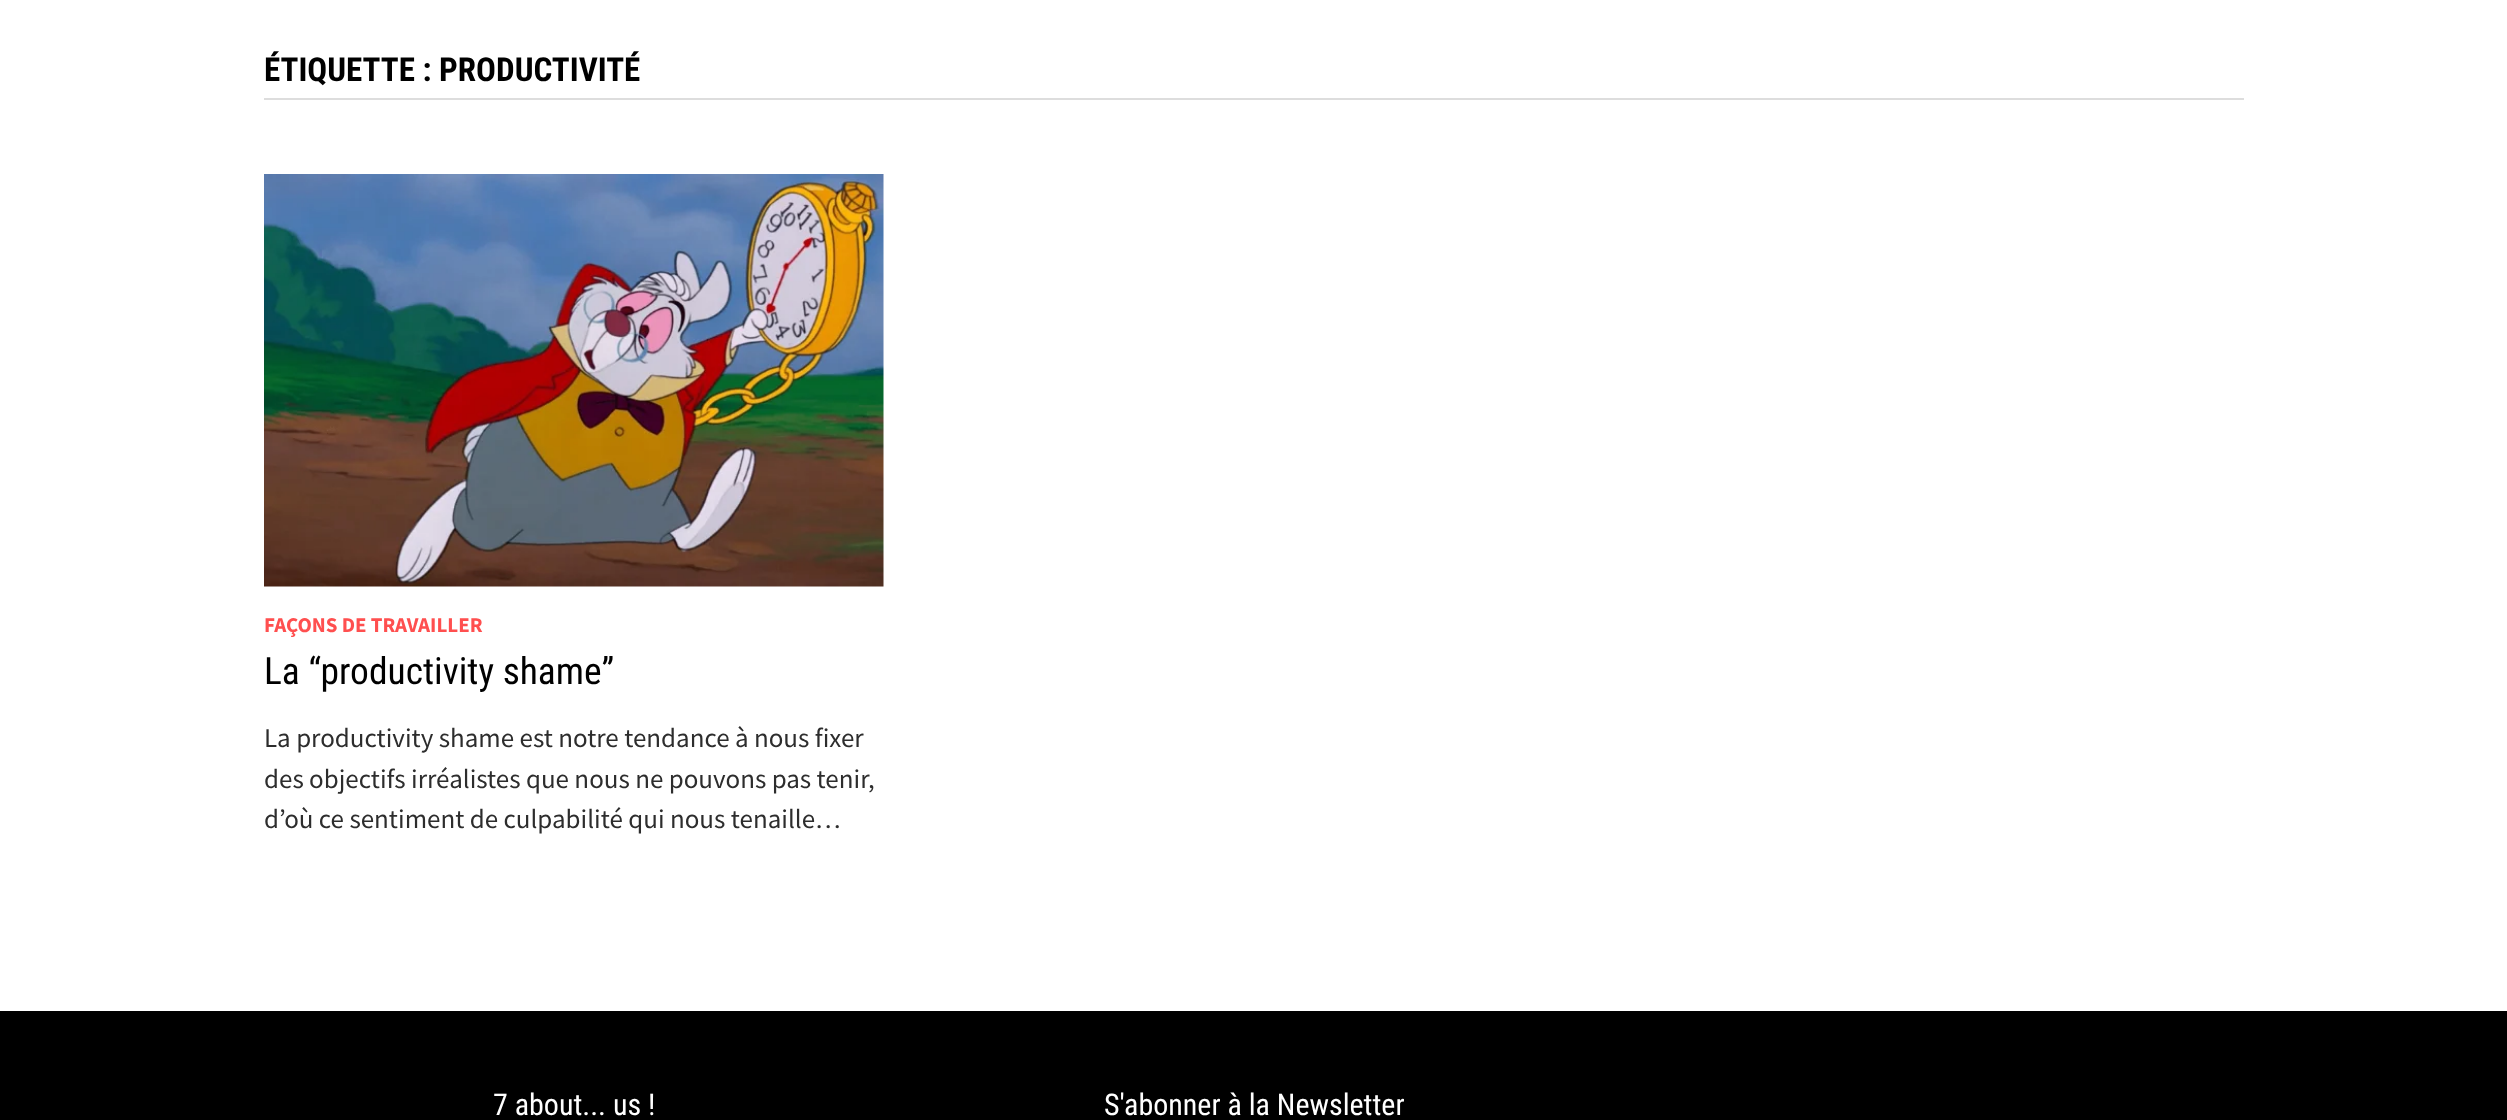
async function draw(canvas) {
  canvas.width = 2507;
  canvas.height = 1120;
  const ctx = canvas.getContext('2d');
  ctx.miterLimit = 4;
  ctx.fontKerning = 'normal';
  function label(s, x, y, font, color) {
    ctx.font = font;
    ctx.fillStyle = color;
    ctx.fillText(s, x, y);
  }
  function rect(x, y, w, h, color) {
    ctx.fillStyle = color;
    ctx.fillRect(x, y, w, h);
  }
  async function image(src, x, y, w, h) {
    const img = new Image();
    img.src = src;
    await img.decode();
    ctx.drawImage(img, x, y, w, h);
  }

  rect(0, 0, 2507, 1120, '#fff');
  rect(264, 98, 1980, 2, '#ddd');
  label('ÉTIQUETTE : PRODUCTIVITÉ', 264, 81, 'bold 33px Roboto Condensed', '#000');
  await image('assets/img1.png', 264, 174, 620, 413);
  label('FAÇONS DE TRAVAILLER', 264, 632, 'bold 21px Source Sans Pro', '#ff4f4f');
  label('La “productivity shame”', 264, 684, '37.5px Roboto Condensed', '#000');
  label('La productivity shame est notre tendance à nous fixer', 264, 747, '27px Source Sans Pro', '#2d2d2d');
  label('des objectifs irréalistes que nous ne pouvons pas tenir,', 264, 788, '27px Source Sans Pro', '#2d2d2d');
  label('d’où ce sentiment de culpabilité qui nous tenaille…', 264, 828, '27px Source Sans Pro', '#2d2d2d');
  rect(0, 1011, 2507, 109, '#000');
  label('7 about... us !', 493, 1115, '30px Roboto Condensed', '#fff');
  label('S\'abonner à la Newsletter', 1104, 1115, '30px Roboto Condensed', '#fff');
}

draw(document.querySelector('canvas'));
